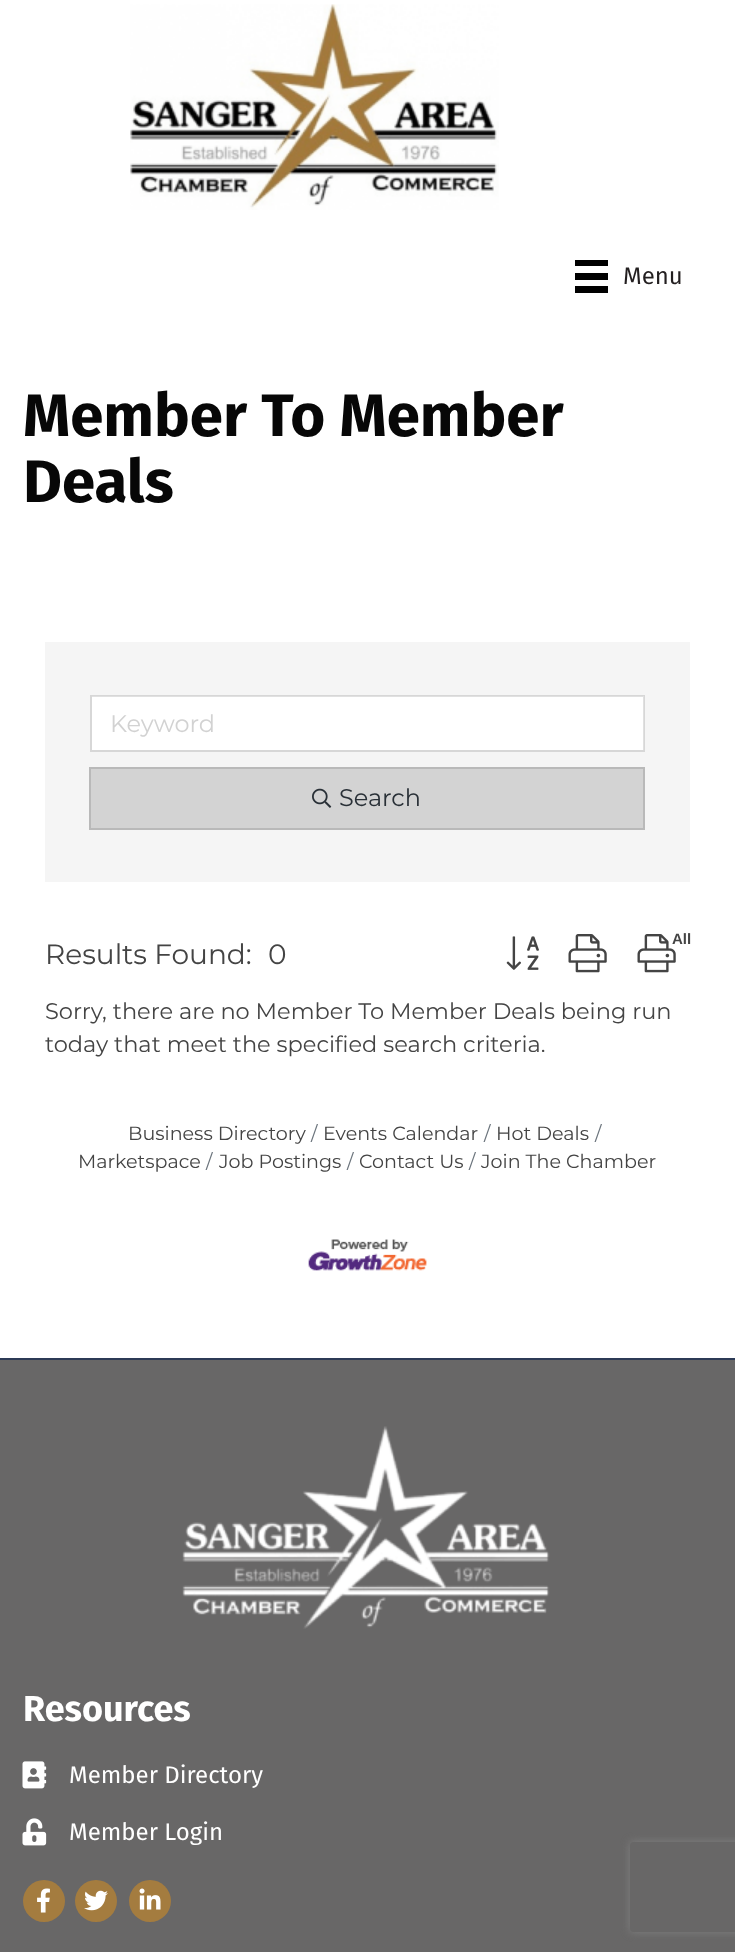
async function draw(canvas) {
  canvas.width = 735
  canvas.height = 1952
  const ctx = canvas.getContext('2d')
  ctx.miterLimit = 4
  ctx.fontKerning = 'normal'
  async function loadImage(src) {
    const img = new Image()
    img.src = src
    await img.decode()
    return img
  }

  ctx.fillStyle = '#fff'
  ctx.fillRect(0, 0, 735, 1952)
  ctx.drawImage(await loadImage('image0.png'), 130, 4, 369, 206)
  ctx.fillStyle = '#000'
  ctx.fillRect(575, 260, 33, 6)
  ctx.fillRect(575, 273, 33, 7)
  ctx.fillRect(575, 286, 33, 7)
  ctx.font = '24px Fira Sans'
  ctx.fillStyle = '#231f20'
  ctx.fillText('Menu', 623, 284)
  ctx.font = 'bold 60px Fira Sans'
  ctx.fillStyle = '#070707'
  ctx.fillText('Member To Member', 23, 436)
  ctx.fillText('Deals', 23, 502)
  ctx.fillStyle = '#f5f5f5'
  ctx.fillRect(45, 642, 645, 240)
  ctx.fillStyle = '#fff'
  ctx.fillRect(92, 696, 552, 54)
  ctx.strokeStyle = '#0000001f'
  ctx.lineWidth = 2
  ctx.strokeRect(91, 696, 553, 55)
  ctx.font = '24px Montserrat'
  ctx.fillStyle = '#d2d2d2'
  ctx.fillText('Keyword', 110, 732)
  ctx.fillStyle = '#d3d3d3'
  ctx.beginPath()
  ctx.rect(90, 768, 554, 61)
  ctx.fill()
  ctx.strokeStyle = '#b9b9b9'
  ctx.stroke()
  ctx.drawImage(await loadImage('image1.png'), 312, 788, 20, 20)
  ctx.fillStyle = '#293037'
  ctx.fillText('Search', 339, 806)
  ctx.drawImage(await loadImage('image2.png'), 506, 936, 33, 34)
  ctx.drawImage(await loadImage('image3.png'), 568, 934, 39, 39)
  ctx.drawImage(await loadImage('image3.png'), 637, 934, 39, 39)
  ctx.font = 'bold 15px Liberation Sans'
  ctx.fillStyle = '#444'
  ctx.fillText('All', 672, 944)
  ctx.font = '28px Montserrat'
  ctx.fillText('Results Found:', 45, 964)
  ctx.fillText('0', 268, 964)
  ctx.font = '22.5px Montserrat'
  ctx.fillText('Sorry, there are no Member To Member Deals being run', 45, 1019)
  ctx.fillText('today that meet the specified search criteria.', 45, 1052)
  ctx.font = '19.1px Montserrat'
  ctx.fillStyle = '#6c757d'
  ctx.fillText('/', 595, 1140)
  ctx.fillStyle = '#444'
  ctx.fillText('Marketspace', 78, 1168)
  ctx.fillText('Business Directory', 128, 1140)
  ctx.fillStyle = '#6c757d'
  ctx.fillText('/', 311, 1140)
  ctx.fillStyle = '#444'
  ctx.fillText('Events Calendar', 323, 1140)
  ctx.fillStyle = '#6c757d'
  ctx.fillText('/', 484, 1140)
  ctx.fillStyle = '#444'
  ctx.fillText('Hot Deals', 496, 1140)
  ctx.fillStyle = '#6c757d'
  ctx.fillText('/', 206, 1168)
  ctx.fillStyle = '#444'
  ctx.fillText('Job Postings', 219, 1168)
  ctx.fillStyle = '#6c757d'
  ctx.fillText('/', 347, 1168)
  ctx.fillStyle = '#444'
  ctx.fillText('Contact Us', 359, 1168)
  ctx.fillStyle = '#6c757d'
  ctx.fillText('/', 469, 1168)
  ctx.fillStyle = '#444'
  ctx.fillText('Join The Chamber', 481, 1168)
  ctx.drawImage(await loadImage('image4.png'), 308, 1239, 119, 32)
  ctx.fillStyle = '#686767'
  ctx.fillRect(0, 1360, 735, 592)
  ctx.fillStyle = '#2c3a56'
  ctx.fillRect(0, 1358, 735, 2)
  ctx.drawImage(await loadImage('image5.png'), 182, 1426, 368, 203)
  ctx.font = 'bold 36px Fira Sans'
  ctx.fillStyle = '#fff'
  ctx.fillText('Resources', 23, 1721)
  ctx.drawImage(await loadImage('image6.png'), 22, 1761, 25, 28)
  ctx.font = '24px Fira Sans'
  ctx.fillText('Member Directory', 69, 1783)
  ctx.drawImage(await loadImage('image7.png'), 22, 1818, 25, 28)
  ctx.fillText('Member Login', 69, 1840)
  ctx.fillStyle = '#a47c3f'
  ctx.beginPath()
  ctx.arc(44, 1901, 21, 0, 2 * Math.PI)
  ctx.fill()
  ctx.drawImage(await loadImage('image8.png'), 37, 1888, 13, 25)
  ctx.beginPath()
  ctx.arc(96, 1901, 21, 0, 2 * Math.PI)
  ctx.fill()
  ctx.drawImage(await loadImage('image9.png'), 84, 1890, 24, 21)
  ctx.beginPath()
  ctx.arc(150, 1901, 21, 0, 2 * Math.PI)
  ctx.fill()
  ctx.drawImage(await loadImage('image10.png'), 139, 1888, 22, 22)
  ctx.save()
  ctx.beginPath()
  ctx.moveTo(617, 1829)
  ctx.lineTo(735, 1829)
  ctx.lineTo(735, 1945)
  ctx.lineTo(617, 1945)
  ctx.closePath()
  ctx.moveTo(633, 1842)
  ctx.lineTo(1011, 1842)
  ctx.bezierCurveTo(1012.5, 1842, 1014, 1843.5, 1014, 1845)
  ctx.lineTo(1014, 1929)
  ctx.bezierCurveTo(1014, 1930.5, 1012.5, 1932, 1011, 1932)
  ctx.lineTo(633, 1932)
  ctx.bezierCurveTo(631.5, 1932, 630, 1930.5, 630, 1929)
  ctx.lineTo(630, 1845)
  ctx.bezierCurveTo(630, 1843.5, 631.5, 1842, 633, 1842)
  ctx.closePath()
  ctx.clip('evenodd')
  ctx.fillStyle = '#808080'
  ctx.filter = 'blur(4px)'
  ctx.beginPath()
  ctx.roundRect(630, 1842, 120, 90, 3)
  ctx.fill()
  ctx.filter = 'none'
  ctx.restore()
}

draw(document.querySelector('canvas'))
